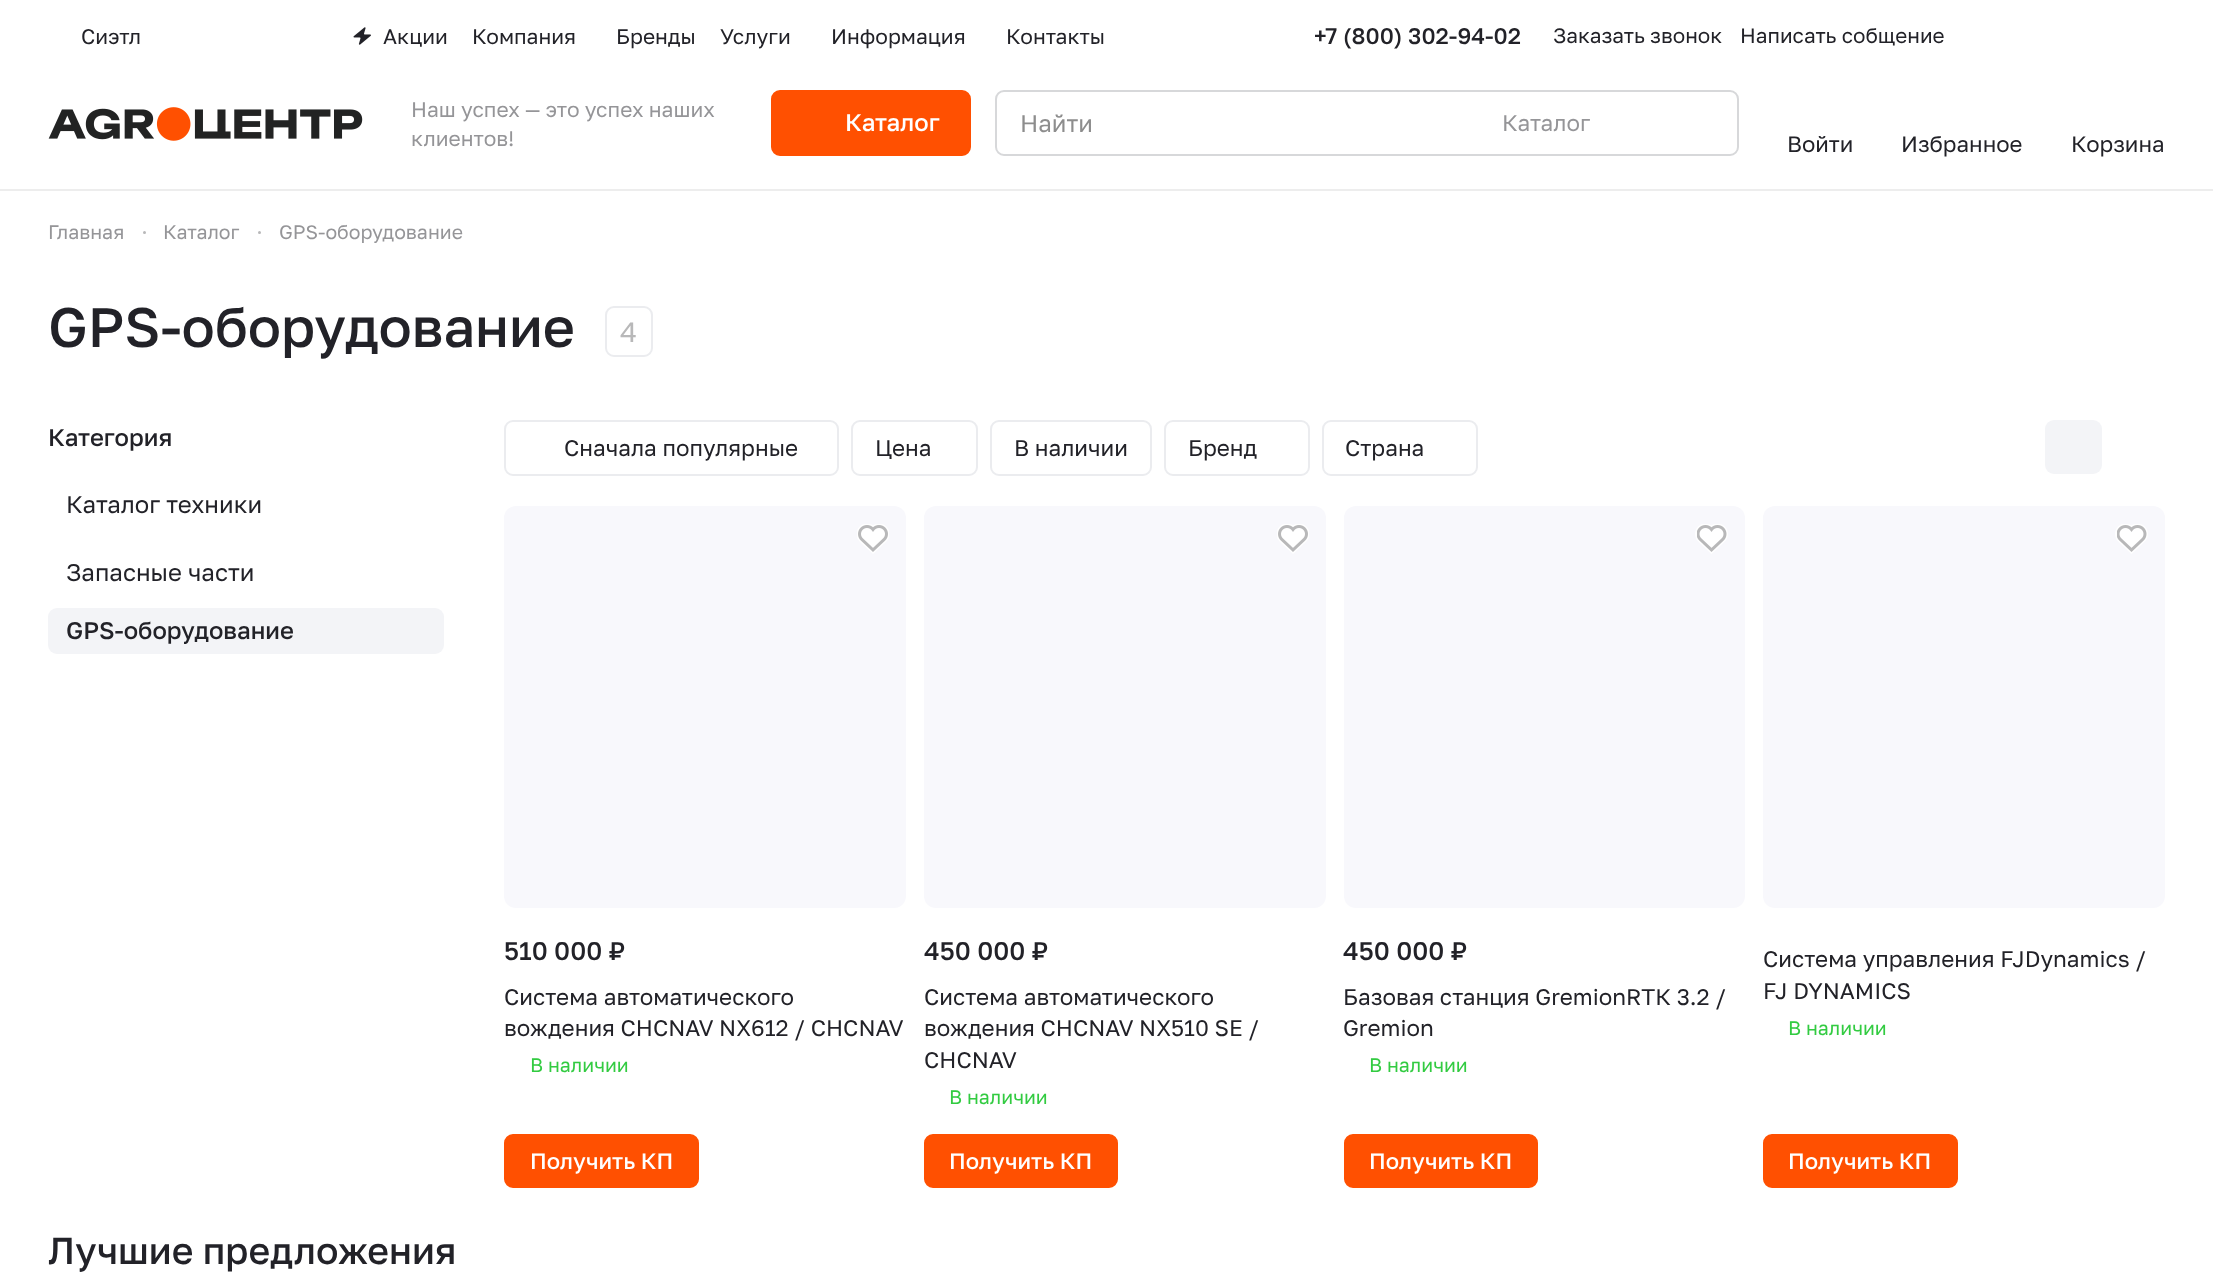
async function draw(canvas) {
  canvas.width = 2221
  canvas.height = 1281
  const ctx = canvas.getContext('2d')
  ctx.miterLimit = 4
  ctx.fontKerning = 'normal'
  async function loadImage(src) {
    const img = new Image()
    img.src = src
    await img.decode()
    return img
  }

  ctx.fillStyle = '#fff'
  ctx.fillRect(0, 0, 2221, 1281)
  ctx.fillStyle = '#ededed'
  ctx.fillRect(0, 189, 2213, 2)
  ctx.font = '21px Golos Text'
  ctx.fillStyle = '#222228'
  ctx.fillText('Сиэтл', 81, 44)
  ctx.drawImage(await loadImage('image0.png'), 353, 27, 18, 18)
  ctx.fillText('Акции', 383, 44)
  ctx.fillText('Компания', 472, 44)
  ctx.fillText('Бренды', 616, 44)
  ctx.fillText('Услуги', 720, 44)
  ctx.fillText('Информация', 831, 44)
  ctx.fillText('Контакты', 1006, 44)
  ctx.font = '500 22.5px Golos Text'
  ctx.fillText('+7 (800) 302-94-02', 1314, 44)
  ctx.font = '20.75px Golos Text'
  ctx.fillText('Заказать звонок', 1553, 43)
  ctx.fillText('Написать собщение', 1740, 43)
  ctx.drawImage(await loadImage('image1.png'), 48, 107, 315, 34)
  ctx.font = '21px Golos Text'
  ctx.fillStyle = '#959598'
  ctx.fillText('Наш успех — это успех наших', 411, 117)
  ctx.fillText('клиентов!', 411, 146)
  ctx.fillStyle = '#ff5001'
  ctx.beginPath()
  ctx.roundRect(772, 91, 198, 64, 8)
  ctx.fill()
  ctx.strokeStyle = '#ff5001'
  ctx.lineWidth = 2
  ctx.stroke()
  ctx.font = '500 24px Golos Text'
  ctx.fillStyle = '#fff'
  ctx.fillText('Каталог', 845, 131)
  ctx.beginPath()
  ctx.roundRect(996, 91, 742, 64, 8)
  ctx.strokeStyle = '#d7d8da'
  ctx.stroke()
  ctx.font = '24px Golos Text'
  ctx.fillStyle = '#8d8d8d'
  ctx.fillText('Найти', 1020, 132)
  ctx.font = '22.5px Golos Text'
  ctx.fillStyle = '#959598'
  ctx.fillText('Каталог', 1502, 131)
  ctx.font = '22.25px Golos Text'
  ctx.fillStyle = '#222228'
  ctx.fillText('Войти', 1787, 152)
  ctx.fillText('Избранное', 1901, 152)
  ctx.fillText('Корзина', 2071, 152)
  ctx.font = '19.5px Golos Text'
  ctx.fillStyle = '#959598'
  ctx.fillText('Главная', 48, 239)
  ctx.fillStyle = '#b8b8b9'
  ctx.beginPath()
  ctx.arc(144.5, 232.5, 1.5, 0, 2 * Math.PI)
  ctx.fill()
  ctx.fillStyle = '#959598'
  ctx.fillText('Каталог', 163, 239)
  ctx.fillStyle = '#b8b8b9'
  ctx.beginPath()
  ctx.arc(259.5, 232.5, 1.5, 0, 2 * Math.PI)
  ctx.fill()
  ctx.fillStyle = '#959598'
  ctx.fillText('GPS-оборудование', 279, 239)
  ctx.font = '500 55.5px Golos Text'
  ctx.fillStyle = '#222228'
  ctx.fillText('GPS-оборудование', 48, 347)
  ctx.beginPath()
  ctx.roundRect(606, 307, 46, 49, 8)
  ctx.strokeStyle = '#ebecef'
  ctx.stroke()
  ctx.font = '28px Golos Text'
  ctx.fillStyle = '#b8b8b9'
  ctx.fillText('4', 620, 342)
  ctx.font = '500 24px Golos Text'
  ctx.fillStyle = '#222228'
  ctx.fillText('Категория', 48, 446)
  ctx.font = '24px Golos Text'
  ctx.fillText('Каталог техники', 66, 513)
  ctx.fillText('Запасные части', 66, 581)
  ctx.fillStyle = '#f3f4f7'
  ctx.beginPath()
  ctx.roundRect(48, 608, 396, 46, 9)
  ctx.fill()
  ctx.font = '500 24px Golos Text'
  ctx.fillStyle = '#222228'
  ctx.fillText('GPS-оборудование', 66, 639)
  ctx.beginPath()
  ctx.roundRect(505, 421, 333, 54, 8)
  ctx.stroke()
  ctx.font = '22.5px Golos Text'
  ctx.fillText('Сначала популярные', 564, 456)
  ctx.beginPath()
  ctx.roundRect(852, 421, 125, 54, 8)
  ctx.stroke()
  ctx.fillText('Цена', 875, 456)
  ctx.beginPath()
  ctx.roundRect(991, 421, 160, 54, 8)
  ctx.stroke()
  ctx.fillText('В наличии', 1014, 456)
  ctx.beginPath()
  ctx.roundRect(1165, 421, 144, 54, 8)
  ctx.stroke()
  ctx.fillText('Бренд', 1188, 456)
  ctx.beginPath()
  ctx.roundRect(1323, 421, 154, 54, 8)
  ctx.stroke()
  ctx.fillText('Страна', 1345, 456)
  ctx.fillStyle = '#f3f4f7'
  ctx.beginPath()
  ctx.roundRect(2045, 420, 57, 54, 9)
  ctx.fill()
  ctx.fillStyle = '#f8f8fc'
  ctx.beginPath()
  ctx.roundRect(504, 506, 402, 402, 12)
  ctx.fill()
  ctx.drawImage(await loadImage('image2.png'), 857, 524, 32, 30)
  ctx.drawImage(await loadImage('image3.png'), 858, 525, 30, 27)
  ctx.font = '500 25.5px Golos Text'
  ctx.fillStyle = '#222228'
  ctx.fillText('510 000 ₽', 504, 960)
  ctx.font = '22.5px Golos Text'
  ctx.fillText('Система автоматического', 504, 1005)
  ctx.fillText('вождения CHCNAV NX612 / CHCNAV', 504, 1036)
  ctx.font = '19.5px Golos Text'
  ctx.fillStyle = '#32cb41'
  ctx.fillText('В наличии', 530, 1072)
  ctx.fillStyle = '#ff5001'
  ctx.beginPath()
  ctx.roundRect(505, 1135, 193, 52, 8)
  ctx.fill()
  ctx.strokeStyle = '#ff5001'
  ctx.stroke()
  ctx.font = '500 22.25px Golos Text'
  ctx.fillStyle = '#fff'
  ctx.fillText('Получить КП', 530, 1169)
  ctx.fillStyle = '#f8f8fc'
  ctx.beginPath()
  ctx.roundRect(924, 506, 402, 402, 12)
  ctx.fill()
  ctx.drawImage(await loadImage('image2.png'), 1277, 524, 32, 30)
  ctx.drawImage(await loadImage('image3.png'), 1278, 525, 30, 27)
  ctx.font = '500 25.5px Golos Text'
  ctx.fillStyle = '#222228'
  ctx.fillText('450 000 ₽', 924, 960)
  ctx.font = '22.5px Golos Text'
  ctx.fillText('Система автоматического', 924, 1005)
  ctx.fillText('вождения CHCNAV NX510 SE /', 924, 1036)
  ctx.fillText('CHCNAV', 924, 1068)
  ctx.font = '19.5px Golos Text'
  ctx.fillStyle = '#32cb41'
  ctx.fillText('В наличии', 949, 1104)
  ctx.fillStyle = '#ff5001'
  ctx.beginPath()
  ctx.roundRect(925, 1135, 192, 52, 8)
  ctx.fill()
  ctx.stroke()
  ctx.font = '500 22.25px Golos Text'
  ctx.fillStyle = '#fff'
  ctx.fillText('Получить КП', 949, 1169)
  ctx.fillStyle = '#f8f8fc'
  ctx.beginPath()
  ctx.roundRect(1344, 506, 401, 402, 12)
  ctx.fill()
  ctx.drawImage(await loadImage('image4.png'), 1695, 524, 33, 30)
  ctx.drawImage(await loadImage('image5.png'), 1697, 525, 30, 27)
  ctx.font = '500 25.5px Golos Text'
  ctx.fillStyle = '#222228'
  ctx.fillText('450 000 ₽', 1343, 960)
  ctx.font = '22.5px Golos Text'
  ctx.fillText('Базовая станция GremionRТК 3.2 /', 1343, 1005)
  ctx.fillText('Gremion', 1343, 1036)
  ctx.font = '19.5px Golos Text'
  ctx.fillStyle = '#32cb41'
  ctx.fillText('В наличии', 1369, 1072)
  ctx.fillStyle = '#ff5001'
  ctx.beginPath()
  ctx.roundRect(1345, 1135, 192, 52, 8)
  ctx.fill()
  ctx.stroke()
  ctx.font = '500 22.25px Golos Text'
  ctx.fillStyle = '#fff'
  ctx.fillText('Получить КП', 1369, 1169)
  ctx.fillStyle = '#f8f8fc'
  ctx.beginPath()
  ctx.roundRect(1763, 506, 402, 402, 12)
  ctx.fill()
  ctx.drawImage(await loadImage('image4.png'), 2115, 524, 33, 30)
  ctx.drawImage(await loadImage('image5.png'), 2117, 525, 30, 27)
  ctx.font = '22.5px Golos Text'
  ctx.fillStyle = '#222228'
  ctx.fillText('Система управления FJDynamics /', 1763, 967)
  ctx.fillText('FJ DYNAMICS', 1763, 999)
  ctx.font = '19.5px Golos Text'
  ctx.fillStyle = '#32cb41'
  ctx.fillText('В наличии', 1788, 1035)
  ctx.fillStyle = '#ff5001'
  ctx.beginPath()
  ctx.roundRect(1764, 1135, 193, 52, 8)
  ctx.fill()
  ctx.stroke()
  ctx.font = '500 22.25px Golos Text'
  ctx.fillStyle = '#fff'
  ctx.fillText('Получить КП', 1788, 1169)
  ctx.font = '500 37.5px Golos Text'
  ctx.fillStyle = '#222228'
  ctx.fillText('Лучшие предложения', 48, 1264)
}

draw(document.querySelector('canvas'))
